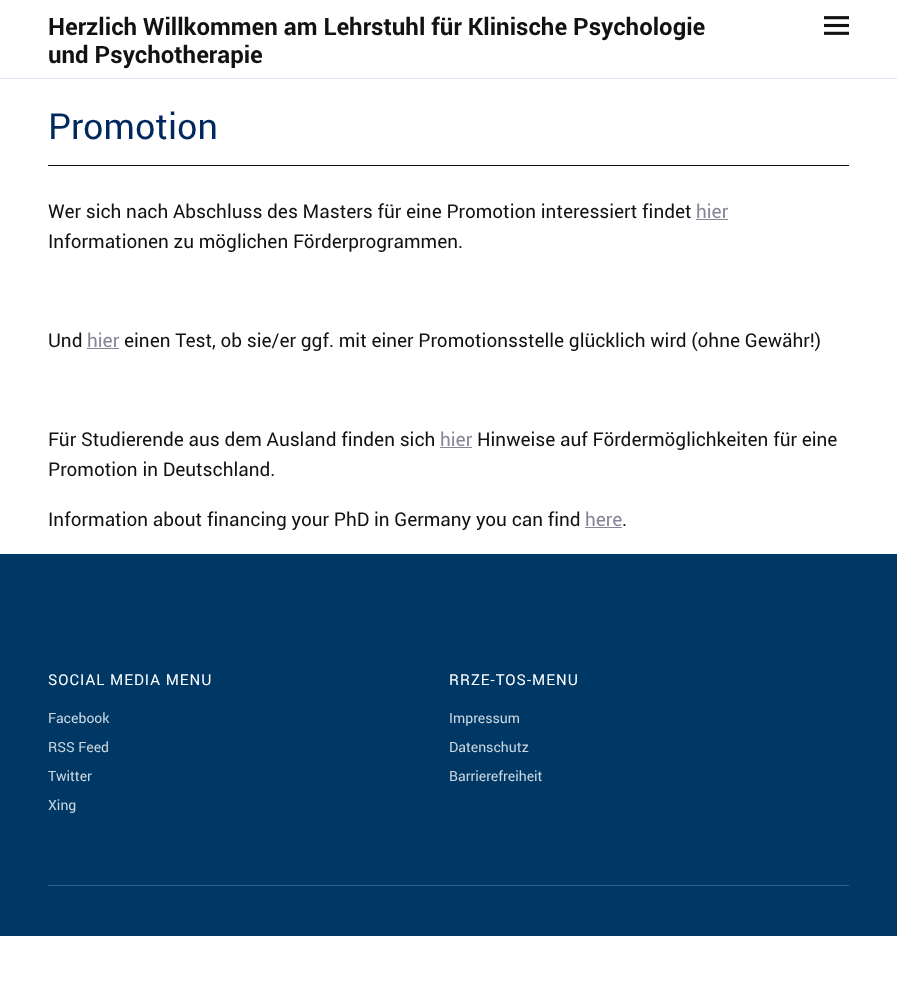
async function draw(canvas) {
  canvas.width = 897
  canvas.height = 1000
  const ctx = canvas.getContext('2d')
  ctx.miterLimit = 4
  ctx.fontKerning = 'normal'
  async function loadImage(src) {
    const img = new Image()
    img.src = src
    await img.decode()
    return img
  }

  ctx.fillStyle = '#fff'
  ctx.fillRect(0, 0, 897, 1000)
  ctx.fillStyle = '#dde5f0'
  ctx.fillRect(0, 78, 897, 1)
  ctx.font = 'bold 24px Roboto'
  ctx.fillStyle = '#121212'
  ctx.fillText('Herzlich Willkommen am Lehrstuhl für Klinische Psychologie', 48, 35)
  ctx.fillText('und Psychotherapie', 48, 63)
  ctx.drawImage(await loadImage('image0.png'), 824, 16, 25, 19)
  ctx.fillRect(48, 165, 801, 1)
  ctx.font = '36px Roboto'
  ctx.fillStyle = '#00285e'
  ctx.fillText('Promotion', 48, 139)
  ctx.font = '19px Roboto'
  ctx.fillStyle = '#121212'
  ctx.fillText('Wer sich nach Abschluss des Masters für eine Promotion interessiert findet', 48, 218)
  ctx.fillStyle = '#878699'
  ctx.fillText('hier', 696, 218)
  ctx.fillRect(696, 219, 32, 1)
  ctx.fillStyle = '#121212'
  ctx.fillText('Informationen zu möglichen Förderprogrammen.', 48, 248)
  ctx.fillText('Und', 48, 347)
  ctx.fillStyle = '#878699'
  ctx.fillText('hier', 87, 347)
  ctx.fillRect(87, 348, 32, 1)
  ctx.fillStyle = '#121212'
  ctx.fillText('einen Test, ob sie/er ggf. mit einer Promotionsstelle glücklich wird (ohne Gewähr!)', 124, 347)
  ctx.fillText('Für Studierende aus dem Ausland finden sich', 48, 446)
  ctx.fillStyle = '#878699'
  ctx.fillText('hier', 440, 446)
  ctx.fillRect(440, 447, 32, 1)
  ctx.fillStyle = '#121212'
  ctx.fillText('Hinweise auf Fördermöglichkeiten für eine', 477, 446)
  ctx.fillText('Promotion in Deutschland.', 48, 476)
  ctx.fillText('Information about financing your PhD in Germany you can find', 48, 526)
  ctx.fillStyle = '#878699'
  ctx.fillText('here', 585, 526)
  ctx.fillStyle = '#121212'
  ctx.fillText('.', 622, 526)
  ctx.fillStyle = '#878699'
  ctx.fillRect(585, 527, 37, 1)
  ctx.fillStyle = '#003865'
  ctx.fillRect(0, 554, 897, 382)
  ctx.fillStyle = '#336084'
  ctx.fillRect(48, 885, 801, 1)
  ctx.letterSpacing = '1px'
  ctx.font = '15px Roboto'
  ctx.fillStyle = '#fff'
  ctx.fillText('SOCIAL MEDIA MENU', 48, 685)
  ctx.letterSpacing = '0px'
  ctx.font = '14px Roboto'
  ctx.fillStyle = '#ccd7e0'
  ctx.fillText('Facebook', 48, 723)
  ctx.fillText('RSS Feed', 48, 752)
  ctx.fillText('Twitter', 48, 781)
  ctx.fillText('Xing', 48, 810)
  ctx.letterSpacing = '1px'
  ctx.font = '15px Roboto'
  ctx.fillStyle = '#fff'
  ctx.fillText('RRZE-TOS-MENU', 449, 685)
  ctx.letterSpacing = '0px'
  ctx.font = '14px Roboto'
  ctx.fillStyle = '#ccd7e0'
  ctx.fillText('Impressum', 449, 723)
  ctx.fillText('Datenschutz', 449, 752)
  ctx.fillText('Barrierefreiheit', 449, 781)
}

draw(document.querySelector('canvas'))
